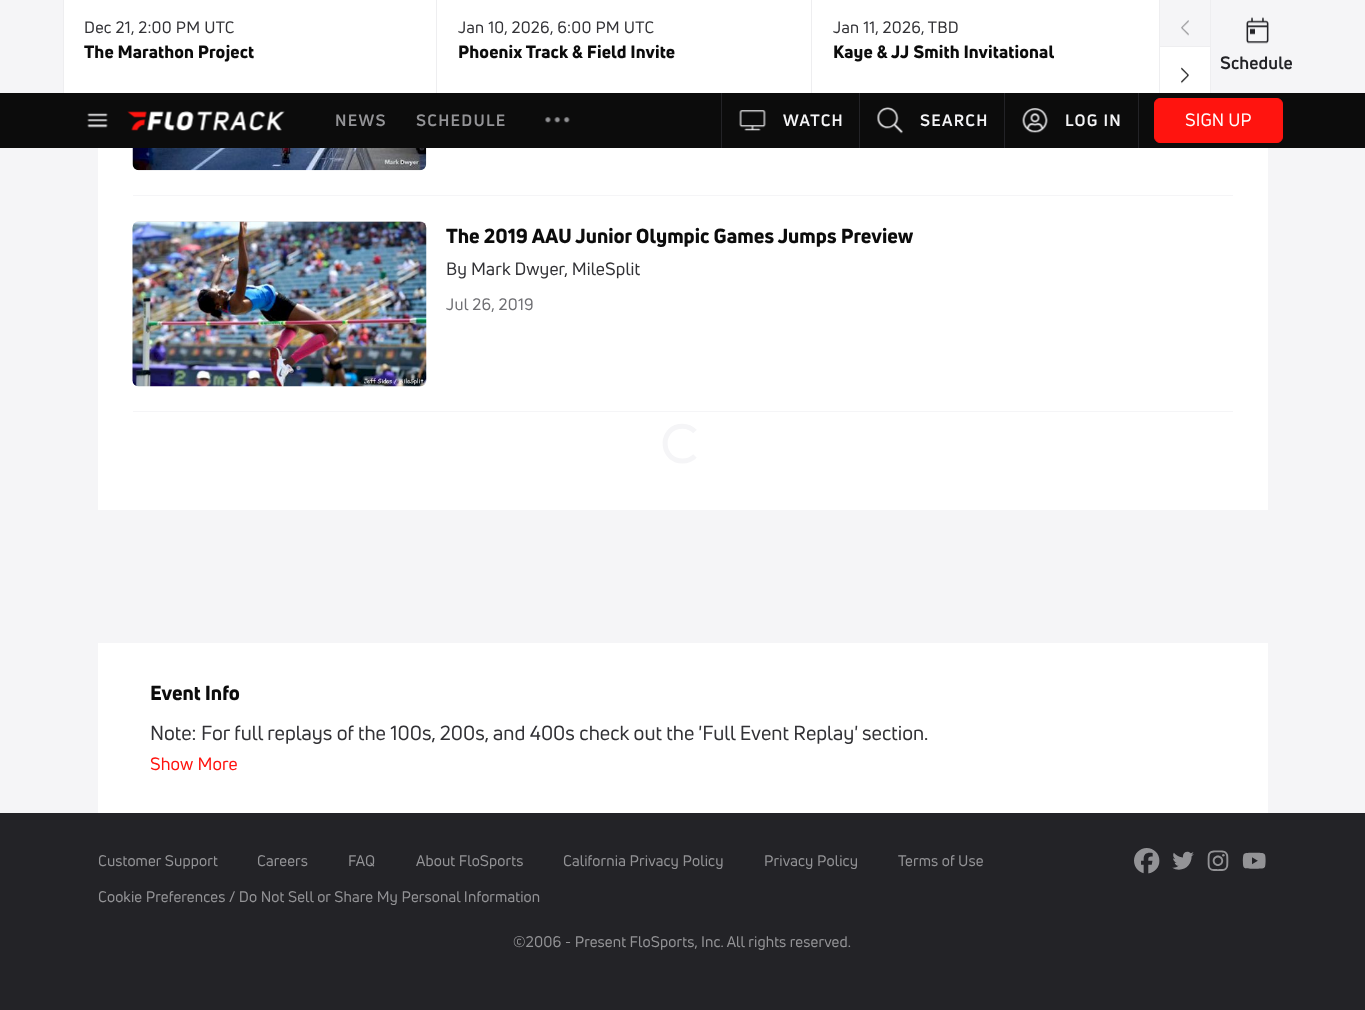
async function draw(canvas) {
  canvas.width = 1365
  canvas.height = 1010
  const ctx = canvas.getContext('2d')
  ctx.miterLimit = 4
  ctx.fontKerning = 'normal'
  async function loadImage(src) {
    const img = new Image()
    img.src = src
    await img.decode()
    return img
  }

  ctx.fillStyle = '#f5f5f7'
  ctx.fillRect(0, 0, 1365, 1010)
  ctx.fillStyle = '#fff'
  ctx.fillRect(64, 0, 1146, 93)
  ctx.fillStyle = '#eeeef0'
  ctx.fillRect(436, 0, 1, 93)
  ctx.fillRect(63, 0, 1, 93)
  ctx.letterSpacing = '0.25px'
  ctx.font = '16.25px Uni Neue'
  ctx.fillStyle = '#323236'
  ctx.fillText('Dec 21, 2:00 PM UTC', 84, 33)
  ctx.letterSpacing = '0.12px'
  ctx.font = '900 17.5px Uni Neue'
  ctx.fillStyle = '#0c0c0c'
  ctx.fillText('The Marathon Project', 84, 58)
  ctx.fillStyle = '#eeeef0'
  ctx.fillRect(811, 0, 1, 93)
  ctx.letterSpacing = '0.25px'
  ctx.font = '16.25px Uni Neue'
  ctx.fillStyle = '#323236'
  ctx.fillText('Jan 10, 2026, 6:00 PM UTC', 458, 33)
  ctx.letterSpacing = '0.12px'
  ctx.font = '900 17.5px Uni Neue'
  ctx.fillStyle = '#0c0c0c'
  ctx.fillText('Phoenix Track & Field Invite', 458, 58)
  ctx.letterSpacing = '0.25px'
  ctx.font = '16.25px Uni Neue'
  ctx.fillStyle = '#323236'
  ctx.fillText('Jan 11, 2026, TBD', 833, 33)
  ctx.letterSpacing = '0.12px'
  ctx.font = '900 17.5px Uni Neue'
  ctx.fillStyle = '#0c0c0c'
  ctx.fillText('Kaye & JJ Smith Invitational', 833, 58)
  ctx.fillStyle = '#eeeef0'
  ctx.fillRect(1159, 0, 1, 93)
  ctx.fillStyle = '#f5f5f7'
  ctx.fillRect(1160, 0, 50, 46)
  ctx.drawImage(await loadImage('image0.png'), 1181, 20, 8, 16)
  ctx.fillStyle = '#eeeef0'
  ctx.fillRect(1160, 46, 50, 1)
  ctx.drawImage(await loadImage('image1.png'), 1181, 67, 8, 17)
  ctx.fillRect(1210, 0, 1, 93)
  ctx.drawImage(await loadImage('image2.png'), 1246, 17, 23, 27)
  ctx.font = 'bold 17.5px Uni Neue'
  ctx.fillStyle = '#232327'
  ctx.fillText('Schedule', 1220, 69)
  ctx.fillStyle = '#0c0c0c'
  ctx.fillRect(0, 93, 1365, 55)
  ctx.drawImage(await loadImage('image3.png'), 87, 113, 21, 15)
  ctx.drawImage(await loadImage('image4.png'), 127, 111, 158, 20)
  ctx.letterSpacing = '1.25px'
  ctx.font = 'bold 16.25px Uni Neue'
  ctx.fillStyle = '#939396'
  ctx.fillText('NEWS', 335, 126)
  ctx.fillText('SCHEDULE', 416, 126)
  ctx.drawImage(await loadImage('image5.png'), 545, 117, 25, 6)
  ctx.fillStyle = '#232327'
  ctx.fillRect(721, 93, 1, 55)
  ctx.drawImage(await loadImage('image6.png'), 739, 110, 27, 21)
  ctx.fillStyle = '#f5f5f7'
  ctx.fillText('WATCH', 783, 126)
  ctx.fillStyle = '#232327'
  ctx.fillRect(859, 93, 1, 55)
  ctx.drawImage(await loadImage('image7.png'), 877, 107, 26, 27)
  ctx.fillStyle = '#f5f5f7'
  ctx.fillText('SEARCH', 920, 126)
  ctx.fillStyle = '#232327'
  ctx.fillRect(1138, 93, 1, 55)
  ctx.fillRect(1004, 93, 1, 55)
  ctx.drawImage(await loadImage('image8.png'), 1022, 108, 26, 25)
  ctx.fillStyle = '#f5f5f7'
  ctx.fillText('LOG IN', 1065, 126)
  ctx.fillStyle = '#ff140f'
  ctx.beginPath()
  ctx.roundRect(1154.5, 98.5, 128, 44, 5.5)
  ctx.fill()
  ctx.strokeStyle = '#ff140f'
  ctx.stroke()
  ctx.letterSpacing = '0.12px'
  ctx.font = '17.5px Uni Neue'
  ctx.fillStyle = '#fff'
  ctx.fillText('SIGN UP', 1185, 126)
  ctx.fillRect(98, 148, 1170, 362)
  ctx.fillStyle = '#f5f5f7'
  ctx.fillRect(133, 195, 1100, 1)
  ctx.drawImage(await loadImage('image9.png'), 132, 148, 295, 23)
  ctx.fillRect(133, 411, 1100, 1)
  ctx.fillStyle = '#e7e7e7'
  ctx.beginPath()
  ctx.roundRect(133, 221, 293, 165, 6)
  ctx.fill()
  ctx.drawImage(await loadImage('image10.png'), 132, 221, 295, 166)
  ctx.letterSpacing = '0px'
  ctx.font = '900 20px Uni Neue'
  ctx.fillStyle = '#0c0c0c'
  ctx.fillText('The 2019 AAU Junior Olympic Games Jumps Preview', 446, 243)
  ctx.letterSpacing = '0.12px'
  ctx.font = '17.5px Uni Neue'
  ctx.fillStyle = '#323236'
  ctx.fillText('By Mark Dwyer, MileSplit', 446, 275)
  ctx.letterSpacing = '0.25px'
  ctx.font = '16.25px Uni Neue'
  ctx.fillStyle = '#6f6f73'
  ctx.fillText('Jul 26, 2019', 446, 310)
  ctx.beginPath()
  ctx.moveTo(695, 456)
  ctx.bezierCurveTo(691.5, 459.5, 687, 461, 682.5, 461)
  ctx.bezierCurveTo(661.5, 461, 658.5, 430.5, 679, 426.5)
  ctx.bezierCurveTo(685, 425.5, 691, 427.5, 695, 431.5)
  ctx.strokeStyle = '#f5f5f7'
  ctx.lineWidth = 5
  ctx.stroke()
  ctx.fillStyle = '#fff'
  ctx.fillRect(98, 643, 1170, 170)
  ctx.letterSpacing = '0px'
  ctx.font = '900 20px Uni Neue'
  ctx.fillStyle = '#0c0c0c'
  ctx.fillText('Event Info', 150, 700)
  ctx.font = '20px Uni Neue'
  ctx.fillStyle = '#323236'
  ctx.fillText('Note: For full replays of the 100s, 200s, and 400s check out the \'Full Event Replay\' section.', 150, 740)
  ctx.letterSpacing = '0.12px'
  ctx.font = '17.5px Uni Neue'
  ctx.fillStyle = '#ff140f'
  ctx.fillText('Show More', 150, 770)
  ctx.fillStyle = '#232327'
  ctx.fillRect(0, 813, 1365, 197)
  ctx.font = '15px Uni Neue'
  ctx.fillStyle = '#939396'
  ctx.fillText('Customer Support', 98, 866)
  ctx.fillText('Careers', 257, 866)
  ctx.fillText('FAQ', 348, 866)
  ctx.fillText('About FloSports', 416, 866)
  ctx.fillText('California Privacy Policy', 563, 866)
  ctx.fillText('Privacy Policy', 764, 866)
  ctx.fillText('Terms of Use', 898, 866)
  ctx.fillText('Cookie Preferences / Do Not Sell or Share My Personal Information', 98, 902)
  ctx.drawImage(await loadImage('image11.png'), 1134, 848, 26, 26)
  ctx.drawImage(await loadImage('image12.png'), 1172, 851, 22, 19)
  ctx.drawImage(await loadImage('image13.png'), 1207, 850, 22, 21)
  ctx.drawImage(await loadImage('image14.png'), 1242, 852, 24, 17)
  ctx.fillText('©2006 - Present FloSports, Inc. All rights reserved.', 513, 947)
}

draw(document.querySelector('canvas'))
